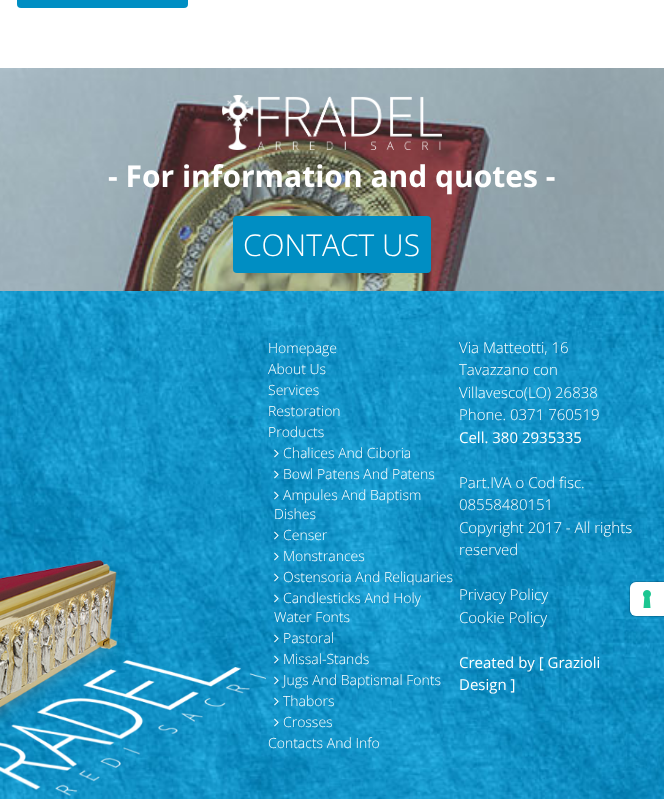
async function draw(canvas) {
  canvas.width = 664
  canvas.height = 799
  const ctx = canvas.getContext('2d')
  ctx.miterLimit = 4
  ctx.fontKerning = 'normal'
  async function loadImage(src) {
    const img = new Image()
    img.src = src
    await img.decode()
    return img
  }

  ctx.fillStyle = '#fff'
  ctx.fillRect(0, 0, 664, 799)
  ctx.fillStyle = '#008ec3'
  ctx.beginPath()
  ctx.roundRect(17, -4, 171, 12, 4)
  ctx.fill()
  ctx.drawImage(await loadImage('image0.png'), 0, 68, 664, 223)
  ctx.drawImage(await loadImage('image1.png'), 222, 95, 220, 55)
  ctx.font = 'bold 30px Open Sans'
  ctx.fillStyle = '#fff'
  ctx.fillText('- For information and quotes -', 108, 187)
  ctx.fillStyle = '#008ec3'
  ctx.beginPath()
  ctx.roundRect(233, 216, 198, 57, 4)
  ctx.fill()
  ctx.font = '300 30px Open Sans'
  ctx.fillStyle = '#fff'
  ctx.fillText('CONTACT US', 243, 256)
  ctx.drawImage(await loadImage('image2.png'), 0, 291, 664, 508)
  ctx.drawImage(await loadImage('image3.png'), 0, 559, 266, 237)
  ctx.font = '300 14px Open Sans'
  ctx.fillText('Homepage', 268, 353)
  ctx.fillText('About Us', 268, 374)
  ctx.fillText('Services', 268, 395)
  ctx.fillText('Restoration', 268, 416)
  ctx.fillText('Products', 268, 437)
  ctx.drawImage(await loadImage('image4.png'), 274, 449, 5, 9)
  ctx.fillText('Chalices And Ciboria', 283, 458)
  ctx.drawImage(await loadImage('image5.png'), 274, 470, 5, 9)
  ctx.fillText('Bowl Patens And Patens', 283, 479)
  ctx.drawImage(await loadImage('image6.png'), 274, 491, 5, 9)
  ctx.fillText('Ampules And Baptism', 283, 500)
  ctx.fillText('Dishes', 274, 519)
  ctx.drawImage(await loadImage('image7.png'), 274, 531, 5, 9)
  ctx.fillText('Censer', 283, 540)
  ctx.drawImage(await loadImage('image8.png'), 274, 552, 5, 9)
  ctx.fillText('Monstrances', 283, 561)
  ctx.drawImage(await loadImage('image9.png'), 274, 573, 5, 9)
  ctx.fillText('Ostensoria And Reliquaries', 283, 582)
  ctx.drawImage(await loadImage('image10.png'), 274, 594, 5, 9)
  ctx.fillText('Candlesticks And Holy', 283, 603)
  ctx.fillText('Water Fonts', 274, 622)
  ctx.drawImage(await loadImage('image11.png'), 274, 634, 5, 9)
  ctx.fillText('Pastoral', 283, 643)
  ctx.drawImage(await loadImage('image12.png'), 274, 655, 5, 9)
  ctx.fillText('Missal-Stands', 283, 664)
  ctx.drawImage(await loadImage('image13.png'), 274, 676, 5, 9)
  ctx.fillText('Jugs And Baptismal Fonts', 283, 685)
  ctx.drawImage(await loadImage('image14.png'), 274, 697, 5, 9)
  ctx.fillText('Thabors', 283, 706)
  ctx.drawImage(await loadImage('image15.png'), 274, 718, 5, 9)
  ctx.fillText('Crosses', 283, 727)
  ctx.fillText('Contacts And Info', 268, 748)
  ctx.font = '300 15px Open Sans'
  ctx.fillText('Via Matteotti, 16', 459, 353)
  ctx.fillText('Tavazzano con', 459, 375)
  ctx.fillText('Villavesco(LO) 26838', 459, 398)
  ctx.fillText('Phone. 0371 760519', 459, 420)
  ctx.font = '15px Open Sans'
  ctx.fillText('Cell. 380 2935335', 459, 443)
  ctx.font = '300 15px Open Sans'
  ctx.fillText('Part.IVA o Cod fisc.', 459, 488)
  ctx.fillText('08558480151', 459, 510)
  ctx.fillText('Copyright 2017 - All rights', 459, 533)
  ctx.fillText('reserved', 459, 555)
  ctx.fillText('Privacy Policy', 459, 600)
  ctx.fillText('Cookie Policy', 459, 623)
  ctx.font = '15px Open Sans'
  ctx.fillText('Created by [ Grazioli', 459, 668)
  ctx.fillText('Design ]', 459, 690)
  ctx.beginPath()
  ctx.moveTo(636, 581.5)
  ctx.lineTo(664.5, 581.5)
  ctx.lineTo(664.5, 616.5)
  ctx.lineTo(636, 616.5)
  ctx.bezierCurveTo(632.5, 616.5, 629.5, 613.5, 629.5, 610)
  ctx.lineTo(629.5, 588)
  ctx.bezierCurveTo(629.5, 584.5, 632.5, 581.5, 636, 581.5)
  ctx.closePath()
  ctx.strokeStyle = '#00000026'
  ctx.stroke()
  ctx.beginPath()
  ctx.roundRect(630, 582, 34, 34, [6, 0, 0, 6])
  ctx.fill()
  ctx.drawImage(await loadImage('image16.png'), 643, 590, 8, 18)
}

draw(document.querySelector('canvas'))
